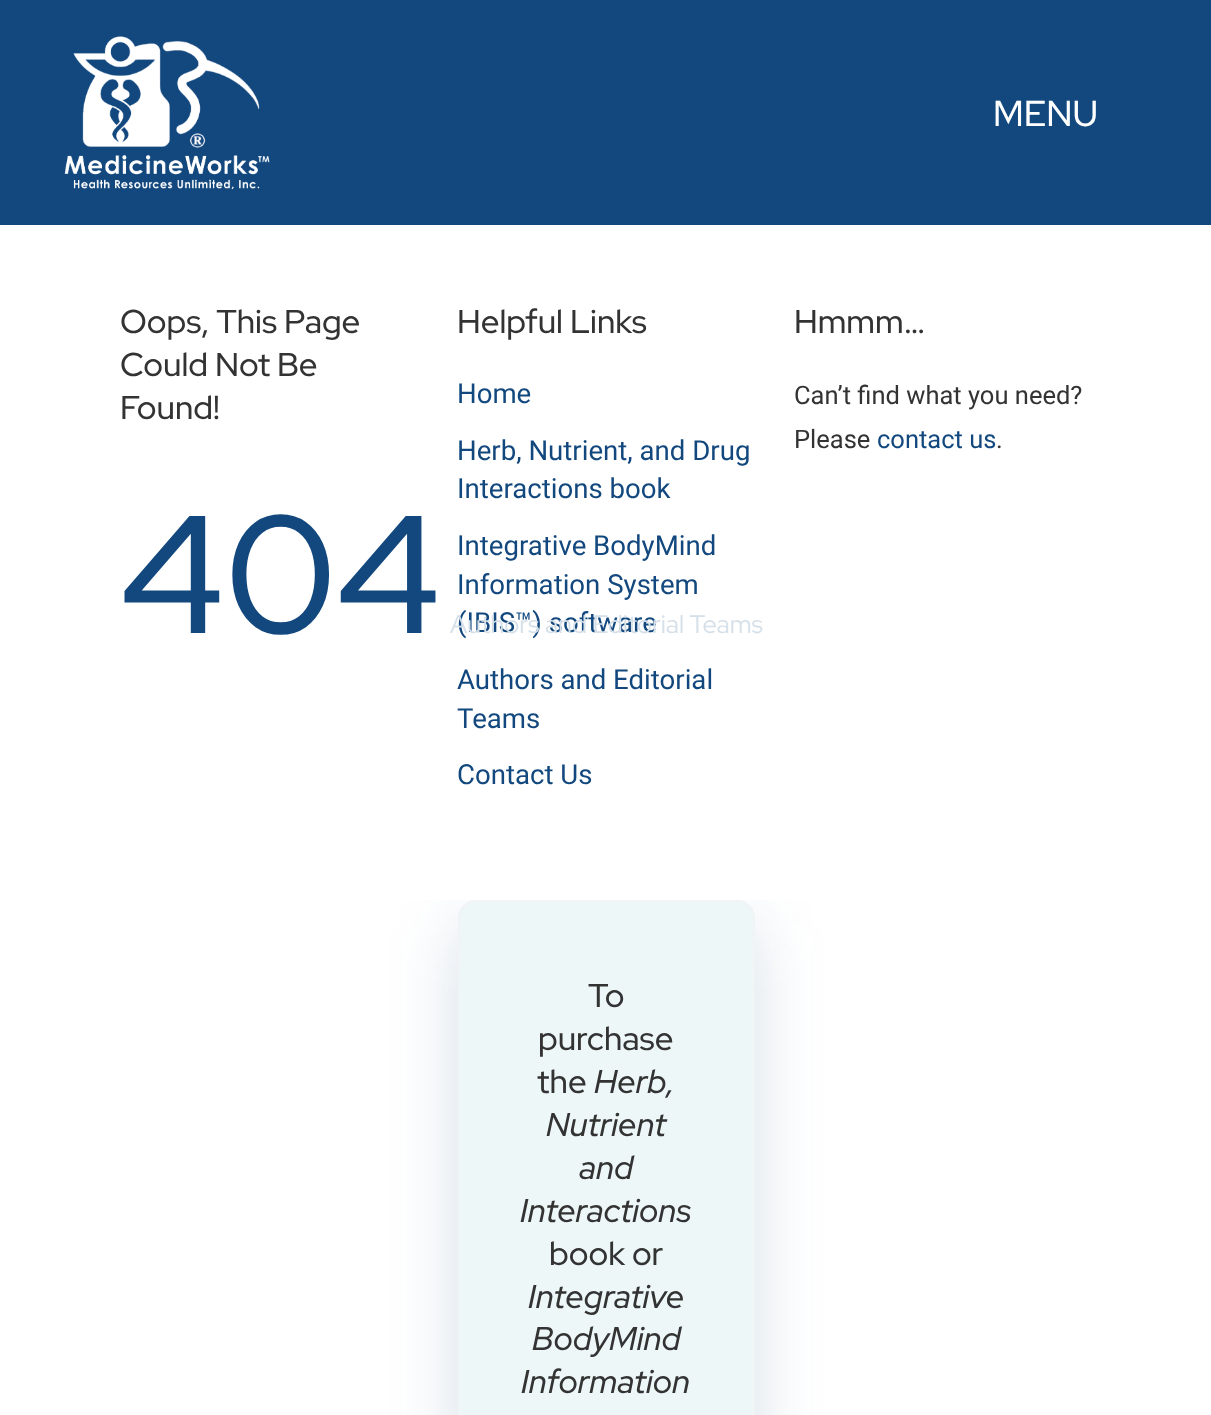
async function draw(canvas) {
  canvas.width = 1211
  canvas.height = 1415
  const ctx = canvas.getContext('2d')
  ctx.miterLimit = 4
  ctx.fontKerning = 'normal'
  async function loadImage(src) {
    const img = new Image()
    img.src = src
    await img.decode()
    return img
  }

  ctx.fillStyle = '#fff'
  ctx.fillRect(0, 0, 1211, 1415)
  ctx.fillStyle = '#12487e'
  ctx.fillRect(0, 0, 1211, 225)
  ctx.drawImage(await loadImage('image0.png'), 64, 36, 206, 154)
  ctx.font = '500 36px Red Hat Display'
  ctx.fillStyle = '#fff'
  ctx.fillText('MENU', 993, 126)
  ctx.font = '27.6px Roboto'
  ctx.fillStyle = '#12487e'
  ctx.fillText('(IBIS™) software', 457, 632)
  ctx.font = '25.5px Red Hat Display'
  ctx.fillStyle = '#d6e0e9'
  ctx.fillText('Authors and Editorial Teams', 450, 633)
  ctx.font = '500 33px Red Hat Display'
  ctx.fillStyle = '#333'
  ctx.fillText('Oops, This Page', 120, 333)
  ctx.fillText('Could Not Be', 120, 376)
  ctx.fillText('Found!', 120, 419)
  ctx.font = '500 167px Red Hat Display'
  ctx.fillStyle = '#12487e'
  ctx.fillText('404', 120, 633)
  ctx.font = '500 33px Red Hat Display'
  ctx.fillStyle = '#333'
  ctx.fillText('Helpful Links', 457, 333)
  ctx.font = '27.6px Roboto'
  ctx.fillStyle = '#12487e'
  ctx.fillText('Home', 457, 403)
  ctx.fillText('Herb, Nutrient, and Drug', 457, 460)
  ctx.fillText('Interactions book', 457, 498)
  ctx.fillText('Integrative BodyMind', 457, 555)
  ctx.fillText('Information System', 457, 594)
  ctx.fillText('Authors and Editorial', 457, 689)
  ctx.fillText('Teams', 457, 728)
  ctx.fillText('Contact Us', 457, 784)
  ctx.font = '500 33px Red Hat Display'
  ctx.fillStyle = '#333'
  ctx.fillText('Hmmm…', 794, 333)
  ctx.font = '25.5px Roboto'
  ctx.fillText('Can’t find what you need?', 794, 404)
  ctx.fillText('Please', 794, 448)
  ctx.fillStyle = '#12487e'
  ctx.fillText('contact us', 877, 448)
  ctx.fillStyle = '#333'
  ctx.fillText('.', 996, 448)
  ctx.save()
  ctx.beginPath()
  ctx.moveTo(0, 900)
  ctx.lineTo(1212, 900)
  ctx.lineTo(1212, 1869)
  ctx.lineTo(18, 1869)
  ctx.bezierCurveTo(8, 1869, 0, 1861, 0, 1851)
  ctx.closePath()
  ctx.clip()
  ctx.fillStyle = '#12487e2b'
  ctx.filter = 'blur(34px)'
  ctx.beginPath()
  ctx.roundRect(458, 924, 297, 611, 18)
  ctx.fill()
  ctx.filter = 'none'
  ctx.restore()
  ctx.fillStyle = '#edf7f7'
  ctx.beginPath()
  ctx.roundRect(459, 901, 295, 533, 17)
  ctx.fill()
  ctx.strokeStyle = '#f2f3f5'
  ctx.lineWidth = 2
  ctx.stroke()
  ctx.font = '500 33px Red Hat Display'
  ctx.fillStyle = '#333'
  ctx.fillText('To', 588, 1007)
  ctx.fillText('purchase', 538, 1050)
  ctx.fillText('the', 537, 1093)
  ctx.font = 'italic 500 33px Red Hat Display'
  ctx.fillText('Herb,', 594, 1093)
  ctx.fillText('Nutrient', 546, 1136)
  ctx.fillText('and', 579, 1179)
  ctx.fillText('Interactions', 520, 1222)
  ctx.font = '500 33px Red Hat Display'
  ctx.fillText('book or', 549, 1265)
  ctx.font = 'italic 500 33px Red Hat Display'
  ctx.fillText('Integrative', 528, 1308)
  ctx.fillText('BodyMind', 532, 1350)
  ctx.fillText('Information', 521, 1393)
}

draw(document.querySelector('canvas'))
